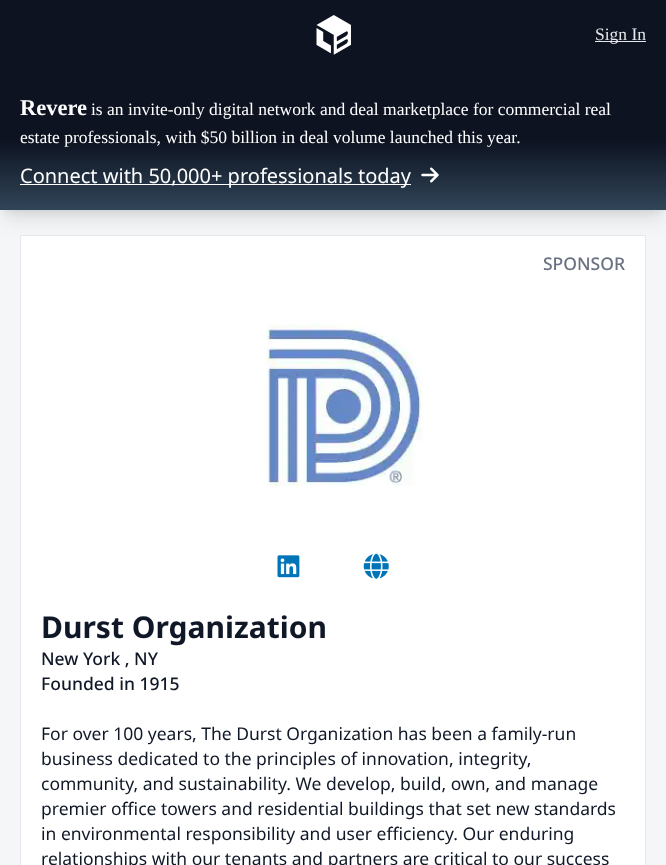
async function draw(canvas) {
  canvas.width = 666
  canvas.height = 865
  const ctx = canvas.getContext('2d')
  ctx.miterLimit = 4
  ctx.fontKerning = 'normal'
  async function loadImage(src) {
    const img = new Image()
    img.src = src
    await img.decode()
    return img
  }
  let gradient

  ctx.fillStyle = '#f5f6f8'
  ctx.fillRect(0, 0, 666, 865)
  ctx.fillStyle = '#0000001a'
  ctx.filter = 'blur(4px)'
  ctx.beginPath()
  ctx.rect(5, 80, 656, 130)
  ctx.fill()
  ctx.filter = 'none'
  ctx.filter = 'blur(9.5px)'
  ctx.beginPath()
  ctx.rect(4, 86, 659, 133)
  ctx.fill()
  ctx.filter = 'none'
  ctx.fillStyle = '#0d1321'
  ctx.fillRect(0, 0, 666, 70)
  ctx.drawImage(await loadImage('image0.png'), 316, 15, 35, 40)
  ctx.fillStyle = '#e5e7eb'
  ctx.fillRect(595, 41, 51, 1)
  ctx.font = '17.5px Liberation Serif'
  ctx.fillText('Sign In', 595, 40)
  gradient = ctx.createLinearGradient(333, 70, 333, 210)
  gradient.addColorStop(0, '#0d1321')
  gradient.addColorStop(0.5, '#0d1321')
  gradient.addColorStop(1, '#314558')
  ctx.fillStyle = gradient
  ctx.fillRect(0, 70, 666, 140)
  ctx.font = 'bold 22.5px Liberation Serif'
  ctx.fillStyle = '#fff'
  ctx.fillText('Revere', 20, 115)
  ctx.font = '17.5px Liberation Serif'
  ctx.fillText('is an invite-only digital network and deal marketplace for commercial real', 91, 115)
  ctx.fillText('estate professionals, with $50 billion in deal volume launched this year.', 20, 143)
  ctx.fillRect(20, 184, 391, 1)
  ctx.font = '20px Noto Sans'
  ctx.fillText('Connect with 50,000+ professionals today', 20, 183)
  ctx.drawImage(await loadImage('image1.png'), 421, 167, 18, 16)
  ctx.beginPath()
  ctx.rect(20.5, 235.5, 625, 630)
  ctx.fill()
  ctx.strokeStyle = '#e5e7eb'
  ctx.stroke()
  ctx.font = '500 17.5px Noto Sans'
  ctx.fillStyle = '#6a7282'
  ctx.fillText('SPONSOR', 543, 270)
  ctx.drawImage(await loadImage('image2.png'), 266, 324, 157, 163)
  ctx.drawImage(await loadImage('image3.png'), 277, 555, 23, 23)
  ctx.drawImage(await loadImage('image4.png'), 363, 553, 26, 26)
  ctx.font = 'bold 30px Noto Sans'
  ctx.fillStyle = '#101828'
  ctx.fillText('Durst Organization', 41, 638)
  ctx.font = '500 17.5px Noto Sans'
  ctx.fillText('New York , NY', 41, 665)
  ctx.fillText('Founded in 1915', 41, 690)
  ctx.font = '17.5px Noto Sans'
  ctx.fillText('For over 100 years, The Durst Organization has been a family-run', 41, 740)
  ctx.fillText('business dedicated to the principles of innovation, integrity,', 41, 765)
  ctx.fillText('community, and sustainability. We develop, build, own, and manage', 41, 790)
  ctx.fillText('premier office towers and residential buildings that set new standards', 41, 815)
  ctx.fillText('in environmental responsibility and user efficiency. Our enduring', 41, 840)
  ctx.fillText('relationships with our tenants and partners are critical to our success', 41, 865)
}

draw(document.querySelector('canvas'))
